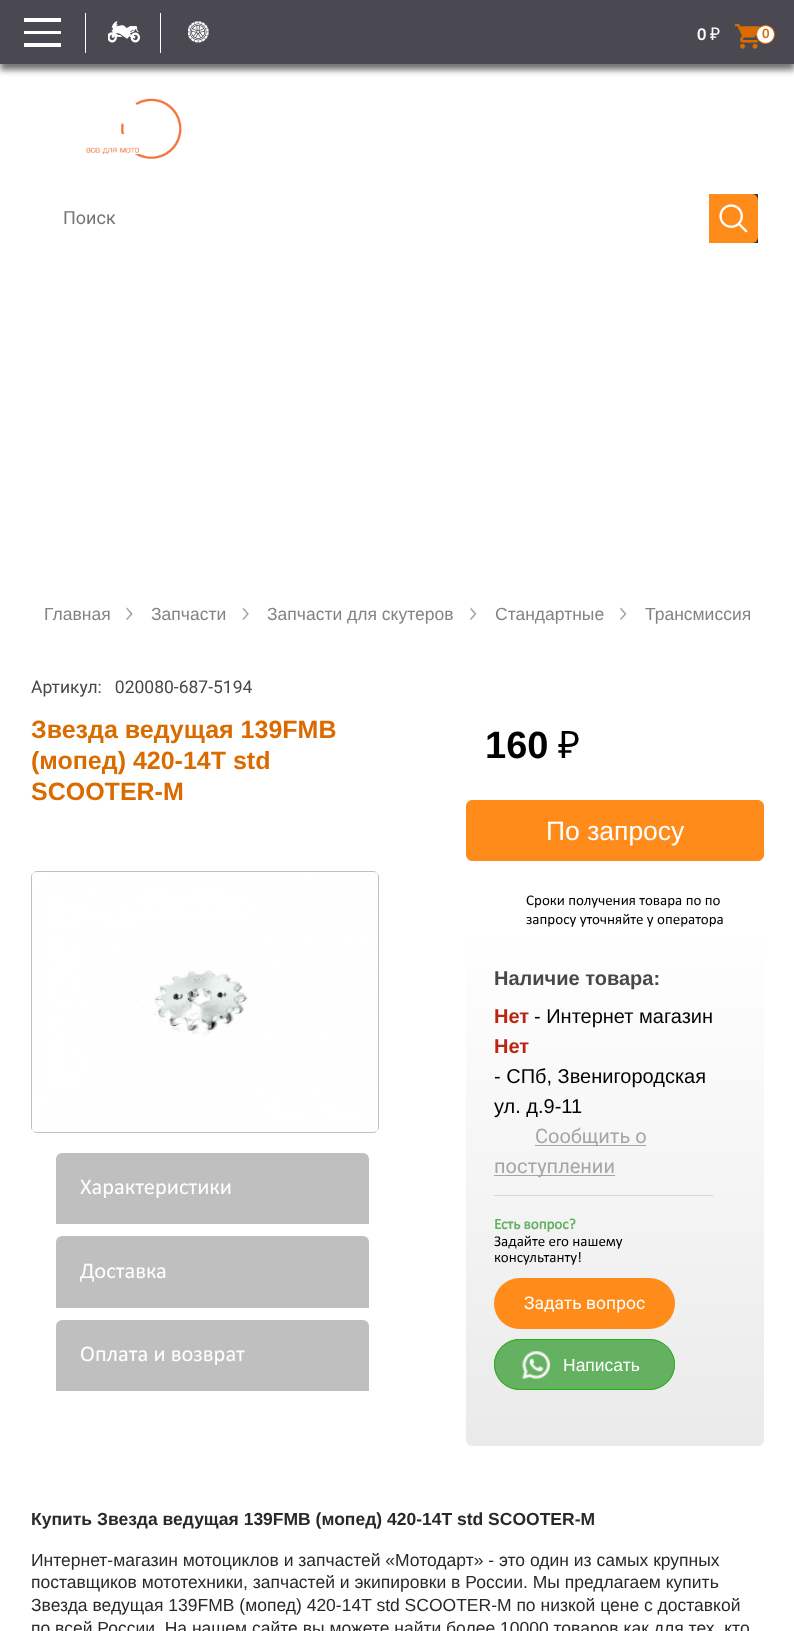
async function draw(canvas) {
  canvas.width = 794
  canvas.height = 1631
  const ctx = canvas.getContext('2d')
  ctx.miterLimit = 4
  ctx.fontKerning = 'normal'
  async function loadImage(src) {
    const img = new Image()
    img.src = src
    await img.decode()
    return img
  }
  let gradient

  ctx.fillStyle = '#fff'
  ctx.fillRect(0, 0, 794, 1631)
  ctx.fillStyle = '#0000008c'
  ctx.filter = 'blur(3px)'
  ctx.beginPath()
  ctx.rect(0, 6, 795, 64)
  ctx.fill()
  ctx.filter = 'none'
  ctx.fillStyle = '#4a4952'
  ctx.fillRect(0, 0, 794, 64)
  ctx.fillStyle = '#fff'
  ctx.fillRect(24, 18, 37, 4)
  ctx.fillRect(24, 43, 37, 4)
  ctx.fillRect(24, 31, 37, 3)
  ctx.fillRect(85, 13, 1, 40)
  ctx.drawImage(await loadImage('image0.png'), 108, 21, 32, 22)
  ctx.fillRect(160, 13, 1, 40)
  ctx.drawImage(await loadImage('image1.png'), 188, 21, 21, 22)
  ctx.font = 'bold 17.5px Calibri'
  ctx.fillText('0', 697, 40)
  ctx.font = '17.5px Noto Sans'
  ctx.fillText('₽', 710, 40)
  ctx.drawImage(await loadImage('image2.png'), 735, 24, 25, 25)
  ctx.beginPath()
  ctx.arc(765.5, 34.5, 9, 0, 2 * Math.PI)
  ctx.fill()
  ctx.strokeStyle = '#da6b00'
  ctx.stroke()
  ctx.font = 'bold 14px Calibri'
  ctx.fillStyle = '#da6b00'
  ctx.fillText('0', 762, 38)
  ctx.drawImage(await loadImage('image3.png'), 86, 98, 96, 61)
  gradient = ctx.createLinearGradient(38, 218, 758, 218)
  gradient.addColorStop(0.95, '#fff')
  gradient.addColorStop(1, '#2b2e35')
  ctx.fillStyle = gradient
  ctx.fillRect(722, 194, 36, 49)
  ctx.font = '18px Roboto'
  ctx.fillStyle = '#757575'
  ctx.fillText('Поиск', 63, 224)
  ctx.fillStyle = '#ff8b1b'
  ctx.beginPath()
  ctx.roundRect(709, 194, 49, 49, [0, 6, 6, 0])
  ctx.fill()
  ctx.drawImage(await loadImage('image4.png'), 719, 204, 29, 29)
  ctx.font = '17.5px Liberation Sans'
  ctx.fillStyle = '#838383'
  ctx.fillText('Главная', 44, 620)
  ctx.drawImage(await loadImage('image5.png'), 126, 607, 7, 13)
  ctx.fillText('Запчасти', 151, 620)
  ctx.drawImage(await loadImage('image6.png'), 242, 607, 7, 13)
  ctx.fillText('Запчасти для скутеров', 267, 620)
  ctx.drawImage(await loadImage('image7.png'), 470, 607, 7, 13)
  ctx.fillText('Стандартные', 495, 620)
  ctx.drawImage(await loadImage('image7.png'), 620, 607, 7, 13)
  ctx.fillText('Трансмиссия', 645, 620)
  ctx.font = '17.5px Roboto'
  ctx.fillStyle = '#484848'
  ctx.fillText('Артикул:   020080-687-5194', 31, 693)
  ctx.font = 'bold 25px Liberation Sans'
  ctx.fillStyle = '#da6b00'
  ctx.fillText('Звезда ведущая 139FMB', 31, 738)
  ctx.fillText('(мопед) 420-14T std', 31, 769)
  ctx.fillText('SCOOTER-M', 31, 800)
  ctx.beginPath()
  ctx.roundRect(31.5, 871.5, 347, 261, 5.5)
  ctx.strokeStyle = '#bfbfbf'
  ctx.stroke()
  ctx.drawImage(await loadImage('image8.png'), 32, 872, 346, 260)
  ctx.fillStyle = '#bfbfbf'
  ctx.beginPath()
  ctx.roundRect(56, 1153, 313, 71, [6, 6, 0, 0])
  ctx.fill()
  ctx.font = '22.5px Calibri'
  ctx.fillStyle = '#fff'
  ctx.fillText('Характеристики', 80, 1194)
  ctx.fillStyle = '#bfbfbf'
  ctx.beginPath()
  ctx.roundRect(56, 1236, 313, 72, [6, 6, 0, 0])
  ctx.fill()
  ctx.fillStyle = '#fff'
  ctx.fillText('Доставка', 80, 1278)
  ctx.fillStyle = '#bfbfbf'
  ctx.beginPath()
  ctx.roundRect(56, 1320, 313, 71, [6, 6, 0, 0])
  ctx.fill()
  ctx.fillStyle = '#fff'
  ctx.fillText('Оплата и возврат', 80, 1361)
  ctx.font = 'bold 38px Liberation Sans'
  ctx.fillStyle = '#000'
  ctx.fillText('160', 485, 758)
  ctx.font = '38px Noto Sans'
  ctx.fillText('₽', 558, 758)
  ctx.fillStyle = '#ff8b1b'
  ctx.beginPath()
  ctx.roundRect(466.5, 800.5, 297, 60, 5.5)
  ctx.fill()
  ctx.strokeStyle = '#ff8b1b'
  ctx.stroke()
  ctx.font = '26.5px Liberation Sans'
  ctx.fillStyle = '#fff'
  ctx.fillText('По запросу', 546, 840)
  ctx.font = '15px Calibri'
  ctx.fillStyle = '#000'
  ctx.fillText('Сроки получения товара по по', 526, 905)
  ctx.fillText('запросу уточняйте у оператора', 526, 924)
  gradient = ctx.createLinearGradient(615, 930, 615, 1446)
  gradient.addColorStop(0, '#fff')
  gradient.addColorStop(1, '#eaeaea')
  ctx.fillStyle = gradient
  ctx.beginPath()
  ctx.roundRect(466, 930, 298, 516, 6)
  ctx.fill()
  ctx.font = 'bold 20px Liberation Sans'
  ctx.fillStyle = '#484848'
  ctx.fillText('Наличие товара:', 494, 985)
  ctx.fillStyle = '#bb2612'
  ctx.fillText('Нет', 494, 1023)
  ctx.font = '20px Liberation Sans'
  ctx.fillStyle = '#000'
  ctx.fillText('- Интернет магазин', 534, 1023)
  ctx.font = 'bold 20px Liberation Sans'
  ctx.fillStyle = '#bb2612'
  ctx.fillText('Нет', 494, 1053)
  ctx.font = '20px Liberation Sans'
  ctx.fillStyle = '#000'
  ctx.fillText('- СПб, Звенигородская', 494, 1083)
  ctx.fillText('ул. д.9-11', 494, 1113)
  ctx.fillStyle = '#a6a6a6'
  ctx.fillRect(535, 1145, 111, 1)
  ctx.font = '20px Roboto'
  ctx.fillText('Сообщить о', 535, 1143)
  ctx.fillRect(494, 1175, 121, 1)
  ctx.fillText('поступлении', 494, 1173)
  ctx.fillStyle = '#d6d6d6'
  ctx.fillRect(494, 1195, 219, 1)
  ctx.font = 'bold 15px Calibri'
  ctx.fillStyle = '#64b161'
  ctx.fillText('Есть вопрос?', 494, 1229)
  ctx.font = '15px Calibri'
  ctx.fillStyle = '#000'
  ctx.fillText('Задайте его нашему', 494, 1246)
  ctx.fillText('консультанту!', 494, 1262)
  ctx.fillStyle = '#ff8b1b'
  ctx.beginPath()
  ctx.roundRect(494, 1278, 181, 51, 25.5)
  ctx.fill()
  ctx.font = '17.5px Roboto'
  ctx.fillStyle = '#fff'
  ctx.fillText('Задать вопрос', 524, 1309)
  ctx.fillStyle = '#64b161'
  ctx.beginPath()
  ctx.roundRect(494, 1339, 181, 51, 25.5)
  ctx.fill()
  ctx.drawImage(await loadImage('image9.png'), 522, 1351, 28, 28)
  ctx.beginPath()
  ctx.roundRect(494.5, 1339.5, 180, 50, 25)
  ctx.strokeStyle = '#28ac18'
  ctx.stroke()
  ctx.font = '17.5px Liberation Sans'
  ctx.fillStyle = '#fff'
  ctx.fillText('Написать', 563, 1371)
  ctx.font = 'bold 17.5px Liberation Sans'
  ctx.fillStyle = '#292929'
  ctx.fillText('Купить Звезда ведущая 139FMB (мопед) 420-14T std SCOOTER-M', 31, 1525)
  ctx.font = '17.5px Liberation Sans'
  ctx.fillText('Интернет-магазин мотоциклов и запчастей «Мотодарт» - это один из самых крупных', 31, 1566)
  ctx.fillText('поставщиков мототехники, запчастей и экипировки в России. Мы предлагаем купить', 31, 1588)
  ctx.fillText('Звезда ведущая 139FMB (мопед) 420-14T std SCOOTER-M по низкой цене с доставкой', 31, 1611)
  ctx.fillText('по всей России. На нашем сайте вы можете найти более 10000 товаров как для тех, кто', 31, 1634)
}

draw(document.querySelector('canvas'))
